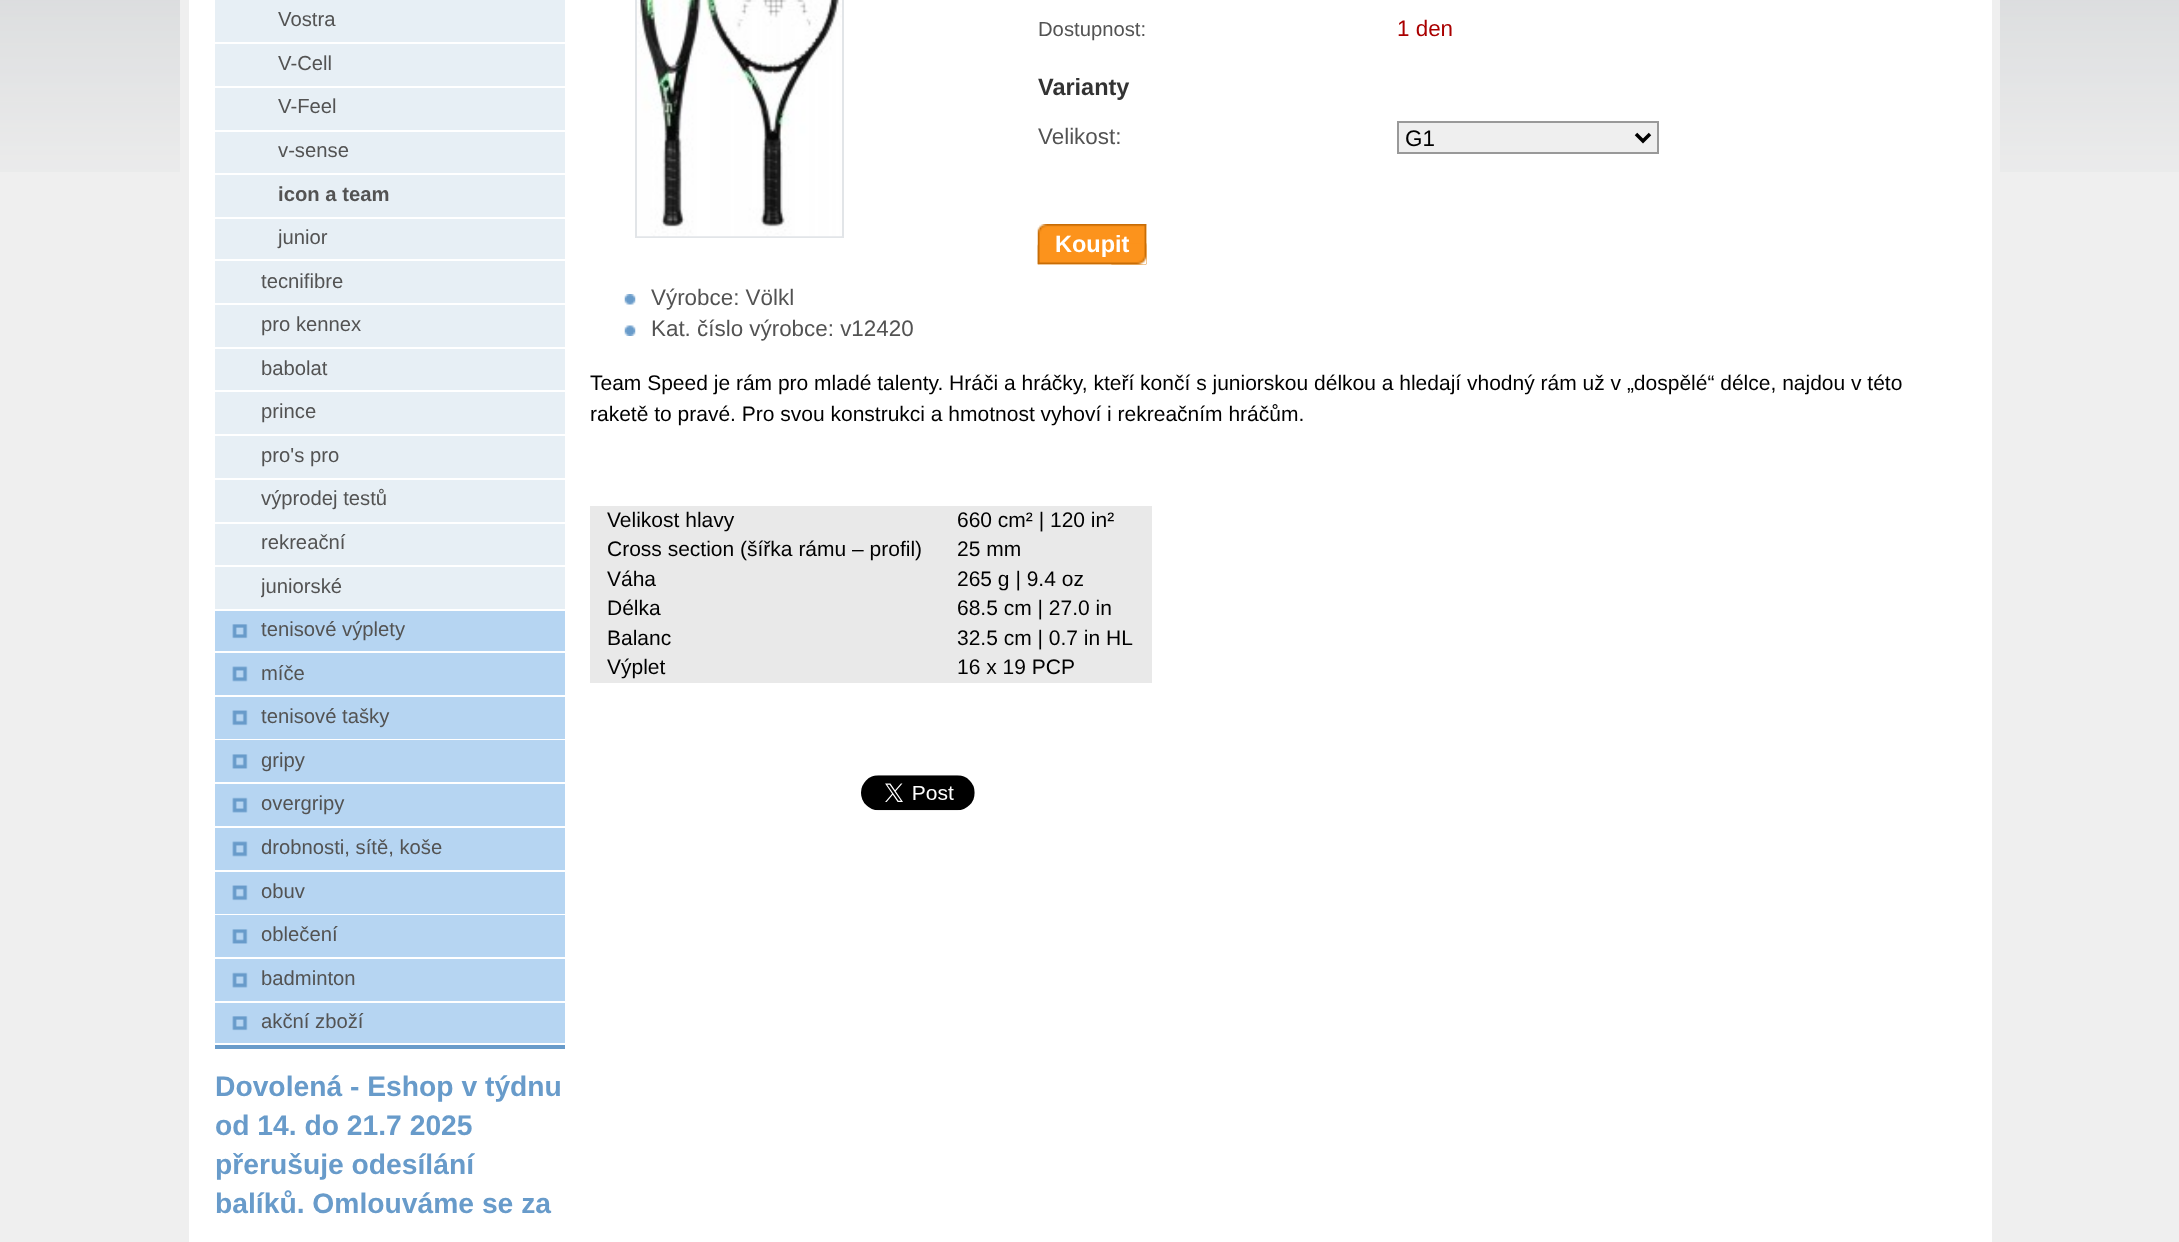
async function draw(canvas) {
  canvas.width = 2179
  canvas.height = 1242
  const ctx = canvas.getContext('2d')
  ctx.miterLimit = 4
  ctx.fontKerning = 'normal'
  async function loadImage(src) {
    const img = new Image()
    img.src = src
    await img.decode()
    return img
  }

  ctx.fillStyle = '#efefef'
  ctx.fillRect(0, 0, 2179, 1242)
  ctx.drawImage(await loadImage('image0.png'), 0, 0, 2179, 172)
  ctx.fillStyle = '#fff'
  ctx.fillRect(189, 0, 1803, 1242)
  ctx.fillStyle = '#efefef'
  ctx.fillRect(1992, 0, 8, 172)
  ctx.fillRect(180, 0, 9, 172)
  ctx.fillStyle = '#689bca'
  ctx.fillRect(215, 1045, 350, 4)
  ctx.fillStyle = '#b6d5f2'
  ctx.fillRect(215, 611, 350, 432)
  ctx.fillStyle = '#e7eff5'
  ctx.fillRect(215, 0, 350, 609)
  ctx.fillStyle = '#fff'
  ctx.fillRect(215, 42, 350, 2)
  ctx.font = '20.25px Liberation Sans'
  ctx.fillStyle = '#535353'
  ctx.fillText('Vostra', 278, 26)
  ctx.fillStyle = '#fff'
  ctx.fillRect(215, 86, 350, 2)
  ctx.fillStyle = '#535353'
  ctx.fillText('V-Cell', 278, 70)
  ctx.fillStyle = '#fff'
  ctx.fillRect(215, 130, 350, 2)
  ctx.fillStyle = '#535353'
  ctx.fillText('V-Feel', 278, 113)
  ctx.fillStyle = '#fff'
  ctx.fillRect(215, 173, 350, 2)
  ctx.fillStyle = '#535353'
  ctx.fillText('v-sense', 278, 157)
  ctx.fillStyle = '#fff'
  ctx.fillRect(215, 217, 350, 2)
  ctx.font = 'bold 20.25px Liberation Sans'
  ctx.fillStyle = '#535353'
  ctx.fillText('icon a team', 278, 201)
  ctx.fillStyle = '#fff'
  ctx.fillRect(215, 259, 350, 2)
  ctx.font = '20.25px Liberation Sans'
  ctx.fillStyle = '#535353'
  ctx.fillText('junior', 278, 244)
  ctx.fillStyle = '#fff'
  ctx.fillRect(215, 303, 350, 2)
  ctx.fillStyle = '#535353'
  ctx.fillText('tecnifibre', 261, 288)
  ctx.fillStyle = '#fff'
  ctx.fillRect(215, 347, 350, 2)
  ctx.fillStyle = '#535353'
  ctx.fillText('pro kennex', 261, 331)
  ctx.fillStyle = '#fff'
  ctx.fillRect(215, 390, 350, 2)
  ctx.fillStyle = '#535353'
  ctx.fillText('babolat', 261, 375)
  ctx.fillStyle = '#fff'
  ctx.fillRect(215, 434, 350, 2)
  ctx.fillStyle = '#535353'
  ctx.fillText('prince', 261, 418)
  ctx.fillStyle = '#fff'
  ctx.fillRect(215, 478, 350, 2)
  ctx.fillStyle = '#535353'
  ctx.fillText('pro\'s pro', 261, 462)
  ctx.fillStyle = '#fff'
  ctx.fillRect(215, 522, 350, 2)
  ctx.fillStyle = '#535353'
  ctx.fillText('výprodej testů', 261, 505)
  ctx.fillStyle = '#fff'
  ctx.fillRect(215, 565, 350, 2)
  ctx.fillStyle = '#535353'
  ctx.fillText('rekreační', 261, 549)
  ctx.save()
  ctx.beginPath()
  ctx.rect(261, 567, 287, 42)
  ctx.clip()
  ctx.fillText('juniorské', 261, 593)
  ctx.restore()
  ctx.drawImage(await loadImage('image1.png'), 232, 624, 16, 15)
  ctx.fillStyle = '#fff'
  ctx.fillRect(215, 651, 350, 2)
  ctx.fillStyle = '#535353'
  ctx.fillText('tenisové výplety', 261, 636)
  ctx.drawImage(await loadImage('image2.png'), 232, 666, 16, 16)
  ctx.fillStyle = '#fff'
  ctx.fillRect(215, 695, 350, 2)
  ctx.fillStyle = '#535353'
  ctx.fillText('míče', 261, 680)
  ctx.drawImage(await loadImage('image3.png'), 232, 710, 16, 16)
  ctx.fillStyle = '#fff'
  ctx.fillRect(215, 739, 350, 1)
  ctx.fillStyle = '#535353'
  ctx.fillText('tenisové tašky', 261, 723)
  ctx.drawImage(await loadImage('image4.png'), 232, 754, 16, 15)
  ctx.fillStyle = '#fff'
  ctx.fillRect(215, 782, 350, 2)
  ctx.fillStyle = '#535353'
  ctx.fillText('gripy', 261, 767)
  ctx.drawImage(await loadImage('image5.png'), 232, 797, 16, 16)
  ctx.fillStyle = '#fff'
  ctx.fillRect(215, 826, 350, 2)
  ctx.fillStyle = '#535353'
  ctx.fillText('overgripy', 261, 810)
  ctx.drawImage(await loadImage('image2.png'), 232, 841, 16, 16)
  ctx.fillStyle = '#fff'
  ctx.fillRect(215, 870, 350, 2)
  ctx.fillStyle = '#535353'
  ctx.fillText('drobnosti, sítě, koše', 261, 854)
  ctx.drawImage(await loadImage('image3.png'), 232, 885, 16, 16)
  ctx.fillStyle = '#fff'
  ctx.fillRect(215, 914, 350, 1)
  ctx.fillStyle = '#535353'
  ctx.fillText('obuv', 261, 898)
  ctx.drawImage(await loadImage('image4.png'), 232, 929, 16, 15)
  ctx.fillStyle = '#fff'
  ctx.fillRect(215, 957, 350, 2)
  ctx.fillStyle = '#535353'
  ctx.fillText('oblečení', 261, 941)
  ctx.drawImage(await loadImage('image5.png'), 232, 972, 16, 16)
  ctx.fillStyle = '#fff'
  ctx.fillRect(215, 1001, 350, 2)
  ctx.fillStyle = '#535353'
  ctx.fillText('badminton', 261, 985)
  ctx.drawImage(await loadImage('image1.png'), 232, 1016, 16, 15)
  ctx.fillText('akční zboží', 261, 1028)
  ctx.font = 'bold 28.25px Liberation Sans'
  ctx.fillStyle = '#689bca'
  ctx.fillText('Dovolená - Eshop v týdnu', 215, 1096)
  ctx.fillText('od 14. do 21.7 2025', 215, 1135)
  ctx.fillText('přerušuje odesílání', 215, 1174)
  ctx.fillText('balíků. Omlouváme se za', 215, 1213)
  ctx.font = '20.25px Liberation Sans'
  ctx.fillStyle = '#535353'
  ctx.fillText('Dostupnost:', 1038, 36)
  ctx.font = '22.4px Liberation Sans'
  ctx.fillStyle = '#a00'
  ctx.fillText('1 den', 1397, 36)
  ctx.font = 'bold 23.5px Liberation Sans'
  ctx.fillStyle = '#333'
  ctx.fillText('Varianty', 1038, 95)
  ctx.font = '22.4px Liberation Sans'
  ctx.fillStyle = '#535353'
  ctx.fillText('Velikost:', 1038, 144)
  ctx.fillStyle = '#efefef'
  ctx.beginPath()
  ctx.rect(1398, 122, 260, 31)
  ctx.fill()
  ctx.strokeStyle = '#999'
  ctx.lineWidth = 2
  ctx.stroke()
  ctx.beginPath()
  ctx.moveTo(1636, 134)
  ctx.lineTo(1643, 141)
  ctx.lineTo(1650, 134)
  ctx.strokeStyle = '#000'
  ctx.lineWidth = 3.5
  ctx.stroke()
  ctx.fillStyle = '#000'
  ctx.fillText('G1', 1405, 146)
  ctx.drawImage(await loadImage('image6.png'), 1037, 224, 110, 41)
  ctx.drawImage(await loadImage('image7.png'), 1111, 224, 36, 41)
  ctx.drawImage(await loadImage('image8.png'), 1037, 244, 110, 21)
  ctx.drawImage(await loadImage('image9.png'), 1111, 243, 36, 22)
  ctx.font = 'bold 23.5px Liberation Sans'
  ctx.fillStyle = '#fff'
  ctx.fillText('Koupit', 1055, 252)
  ctx.strokeStyle = '#e2e5e8'
  ctx.lineWidth = 2
  ctx.strokeRect(636, -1, 207, 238)
  ctx.drawImage(await loadImage('image10.png'), 637, 0, 205, 237)
  ctx.drawImage(await loadImage('image11.png'), 624, 294, 12, 11)
  ctx.font = '22.4px Liberation Sans'
  ctx.fillStyle = '#535353'
  ctx.fillText('Výrobce: Völkl', 651, 305)
  ctx.drawImage(await loadImage('image12.png'), 624, 325, 12, 11)
  ctx.fillText('Kat. číslo výrobce: v12420', 651, 336)
  ctx.font = '21px Liberation Sans'
  ctx.fillStyle = '#000'
  ctx.fillText('Team Speed je rám pro mladé talenty. Hráči a hráčky, kteří končí s juniorskou délkou a hledají vhodný rám už v „dospělé“ délce, najdou v této', 590, 390)
  ctx.fillText('raketě to pravé. Pro svou konstrukci a hmotnost vyhoví i rekreačním hráčům.', 590, 421)
  ctx.fillStyle = '#e9e9e9'
  ctx.fillRect(590, 506, 562, 177)
  ctx.fillStyle = '#000'
  ctx.fillText('Velikost hlavy', 607, 527)
  ctx.fillText('660 cm² | 120 in²', 957, 527)
  ctx.fillText('Cross section (šířka rámu – profil)', 607, 556)
  ctx.fillText('25 mm', 957, 556)
  ctx.fillText('Váha', 607, 586)
  ctx.fillText('265 g | 9.4 oz', 957, 586)
  ctx.fillText('Délka', 607, 615)
  ctx.fillText('68.5 cm | 27.0 in', 957, 615)
  ctx.fillText('Balanc', 607, 645)
  ctx.fillText('32.5 cm | 0.7 in HL', 957, 645)
  ctx.fillText('Výplet', 607, 674)
  ctx.fillText('16 x 19 PCP', 957, 674)
  ctx.drawImage(await loadImage('image13.png'), 861, 775, 114, 36)
}

draw(document.querySelector('canvas'))
